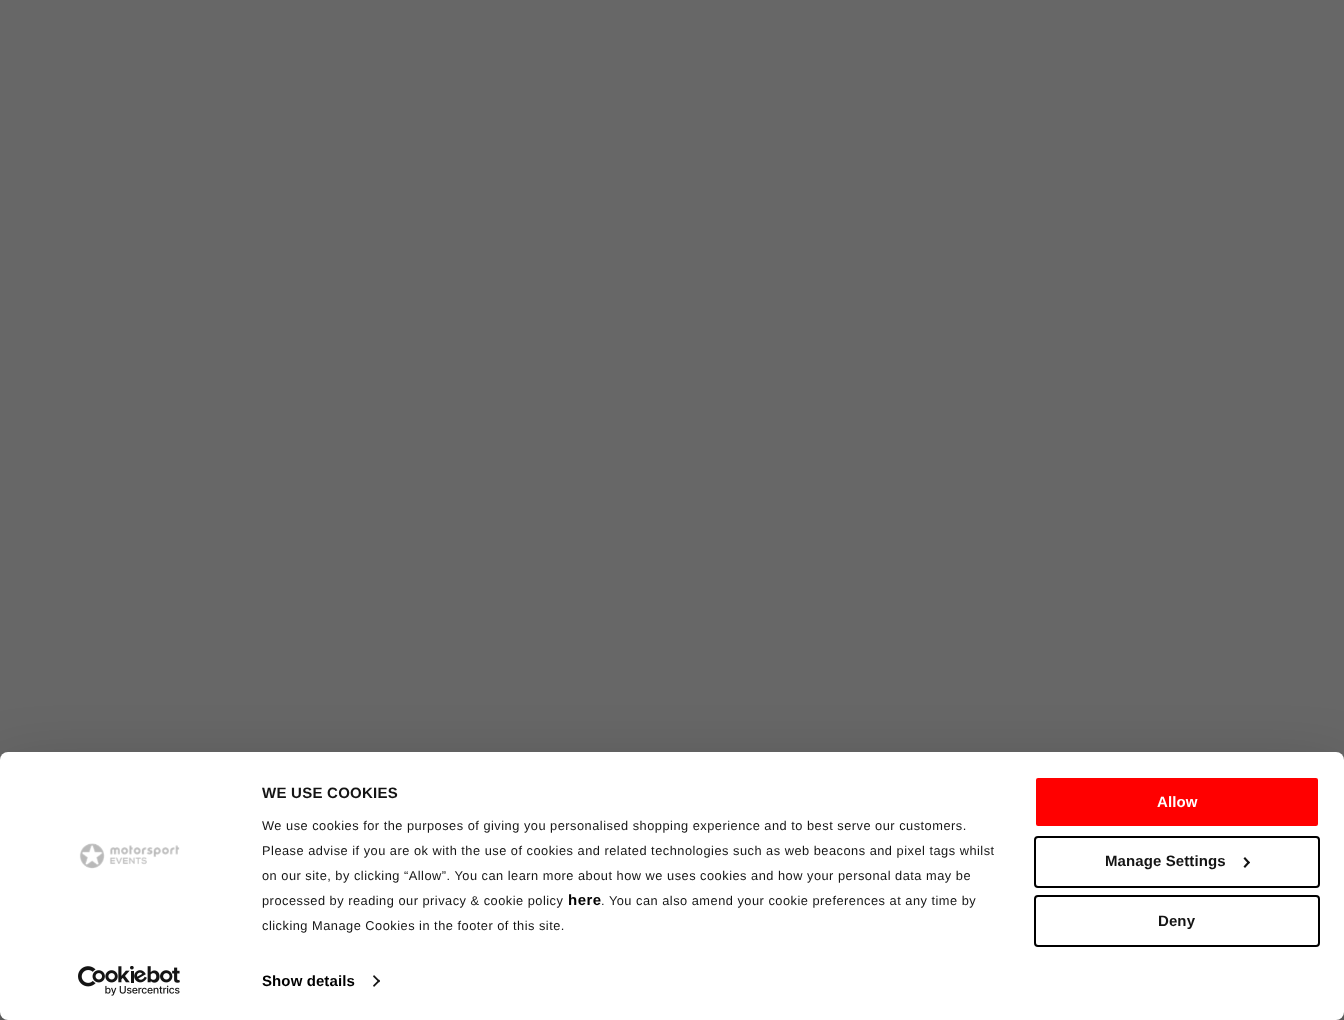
async function draw(canvas) {
  canvas.width = 1344
  canvas.height = 1020
  const ctx = canvas.getContext('2d')
  ctx.miterLimit = 4
  ctx.fontKerning = 'normal'
  async function loadImage(src) {
    const img = new Image()
    img.src = src
    await img.decode()
    return img
  }

  ctx.fillStyle = '#676767'
  ctx.fillRect(0, 0, 1344, 1020)
  ctx.fillStyle = '#0000004d'
  ctx.filter = 'blur(35px)'
  ctx.beginPath()
  ctx.roundRect(0, 782, 1344, 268, 8)
  ctx.fill()
  ctx.filter = 'none'
  ctx.fillStyle = '#fff'
  ctx.beginPath()
  ctx.roundRect(0, 752, 1344, 268, 8)
  ctx.fill()
  ctx.drawImage(await loadImage('image0.png'), 79, 843, 101, 26)
  ctx.drawImage(await loadImage('image1.png'), 78, 966, 102, 30)
  ctx.letterSpacing = '0.25px'
  ctx.font = 'bold 15px Liberation Sans'
  ctx.fillStyle = '#141414'
  ctx.fillText('WE USE COOKIES', 262, 798)
  ctx.letterSpacing = '0.5px'
  ctx.font = '12.8px Liberation Sans'
  ctx.fillText('We use cookies for the purposes of giving you personalised shopping experience and to best serve our customers.', 262, 830)
  ctx.fillText('Please advise if you are ok with the use of cookies and related technologies such as web beacons and pixel tags whilst', 262, 855)
  ctx.fillText('on our site, by clicking “Allow”. You can learn more about how we uses cookies and how your personal data may be', 262, 880)
  ctx.fillText('processed by reading our privacy & cookie policy', 262, 905)
  ctx.font = 'bold 15px Liberation Sans'
  ctx.fillStyle = '#000'
  ctx.fillText('here', 568, 905)
  ctx.font = '12.8px Liberation Sans'
  ctx.fillStyle = '#141414'
  ctx.fillText('. You can also amend your cookie preferences at any time by', 601, 905)
  ctx.fillText('clicking Manage Cookies in the footer of this site.', 262, 930)
  ctx.letterSpacing = '0.1px'
  ctx.font = 'bold 15px Liberation Sans'
  ctx.fillStyle = '#000'
  ctx.fillText('Show details', 262, 986)
  ctx.fillStyle = '#141414'
  ctx.beginPath()
  ctx.moveTo(374, 975)
  ctx.lineTo(380, 981)
  ctx.lineTo(379, 982.5)
  ctx.lineTo(373, 976.5)
  ctx.closePath()
  ctx.fill()
  ctx.beginPath()
  ctx.moveTo(379, 979.5)
  ctx.lineTo(380, 981)
  ctx.lineTo(374, 987)
  ctx.lineTo(373, 985.5)
  ctx.closePath()
  ctx.fill()
  ctx.fillStyle = '#f00'
  ctx.beginPath()
  ctx.roundRect(1035, 777, 284, 50, 3)
  ctx.fill()
  ctx.strokeStyle = '#fff'
  ctx.lineWidth = 2
  ctx.stroke()
  ctx.fillStyle = '#fff'
  ctx.fillText('Allow', 1157, 807)
  ctx.beginPath()
  ctx.roundRect(1035, 837, 284, 50, 3)
  ctx.strokeStyle = '#000'
  ctx.stroke()
  ctx.fillStyle = '#141414'
  ctx.fillText('Manage Settings', 1105, 866)
  ctx.beginPath()
  ctx.moveTo(1245, 857)
  ctx.lineTo(1250, 862.5)
  ctx.lineTo(1248.5, 864)
  ctx.lineTo(1243.5, 858.5)
  ctx.closePath()
  ctx.fill()
  ctx.beginPath()
  ctx.moveTo(1248.5, 861)
  ctx.lineTo(1250, 862.5)
  ctx.lineTo(1245, 868)
  ctx.lineTo(1243.5, 866.5)
  ctx.closePath()
  ctx.fill()
  ctx.beginPath()
  ctx.roundRect(1035, 896, 284, 50, 3)
  ctx.stroke()
  ctx.fillText('Deny', 1158, 926)
}

draw(document.querySelector('canvas'))
